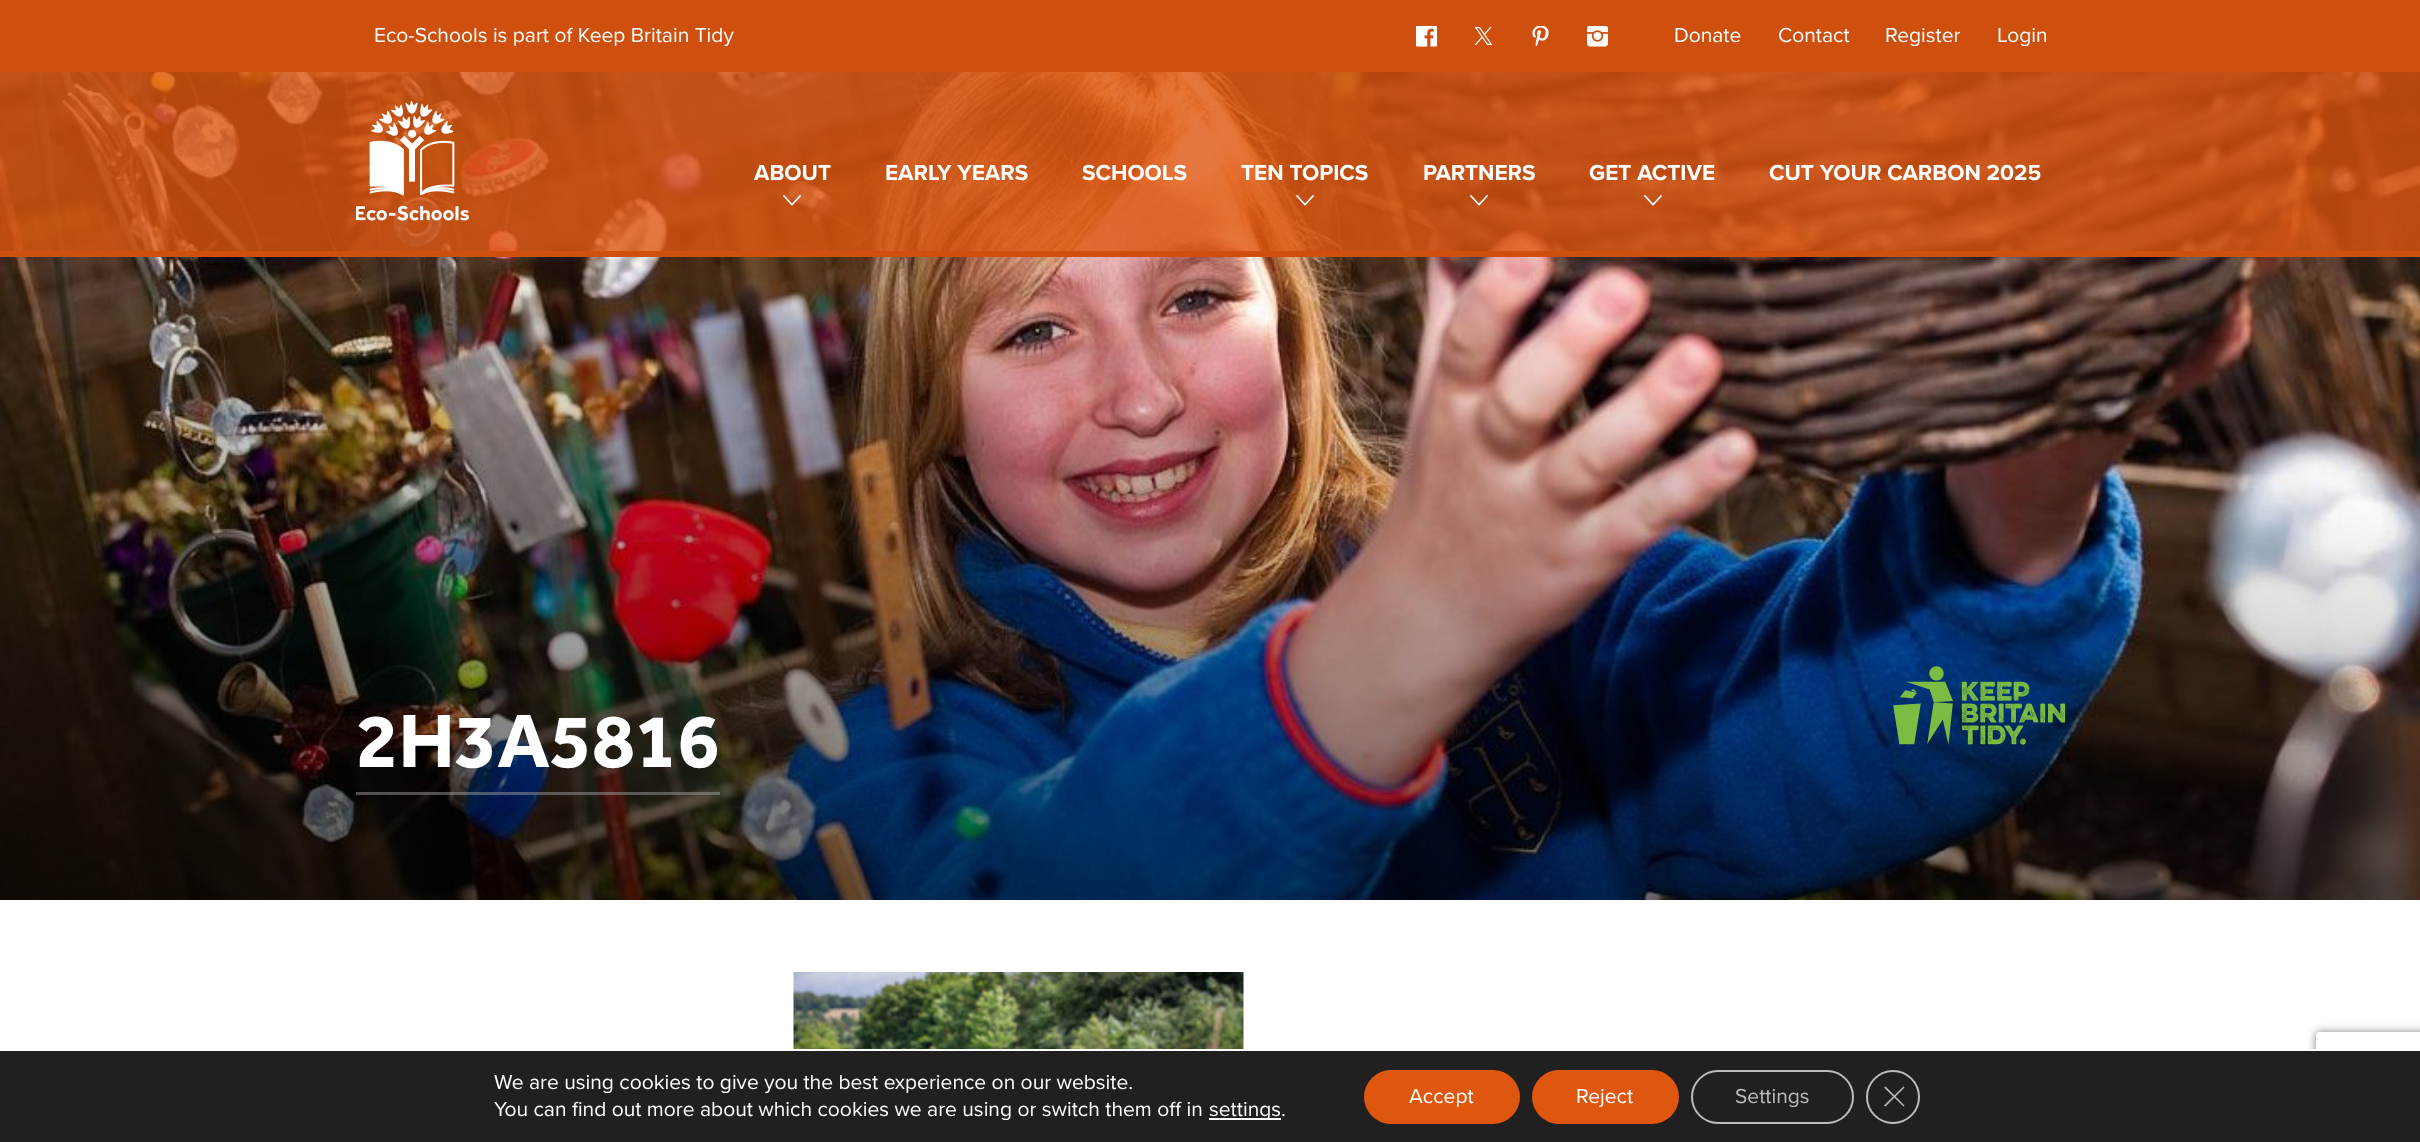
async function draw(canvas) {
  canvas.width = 2420
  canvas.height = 1142
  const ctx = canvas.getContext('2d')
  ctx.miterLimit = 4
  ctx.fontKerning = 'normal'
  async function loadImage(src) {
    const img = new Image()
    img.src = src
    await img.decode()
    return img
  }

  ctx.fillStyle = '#fff'
  ctx.fillRect(0, 0, 2420, 1142)
  ctx.drawImage(await loadImage('image9.png'), 0, 72, 2420, 828)
  ctx.fillStyle = '#df560fcc'
  ctx.fillRect(0, 72, 2420, 179)
  ctx.fillStyle = '#ce4f0e'
  ctx.fillRect(0, 0, 2420, 72)
  ctx.font = '21px Proxima Nova'
  ctx.fillStyle = '#fff'
  ctx.fillText('Eco-Schools is part of Keep Britain Tidy', 374, 42)
  ctx.drawImage(await loadImage('image0.png'), 1416, 26, 21, 21)
  ctx.drawImage(await loadImage('image1.png'), 1474, 27, 19, 18)
  ctx.drawImage(await loadImage('image2.png'), 1532, 26, 17, 21)
  ctx.drawImage(await loadImage('image3.png'), 1587, 26, 21, 21)
  ctx.fillText('Donate', 1674, 42)
  ctx.fillText('Contact', 1778, 42)
  ctx.fillText('Register', 1885, 42)
  ctx.fillText('Login', 1997, 42)
  ctx.fillStyle = '#ce4f0e'
  ctx.fillRect(0, 251, 2420, 6)
  ctx.drawImage(await loadImage('image4.png'), 356, 101, 113, 120)
  ctx.font = 'bold 22.5px Proxima Nova'
  ctx.fillStyle = '#fff'
  ctx.fillText('ABOUT', 754, 180)
  ctx.drawImage(await loadImage('image5.png'), 783, 195, 18, 11)
  ctx.fillText('EARLY YEARS', 885, 180)
  ctx.fillText('SCHOOLS', 1082, 180)
  ctx.fillText('TEN TOPICS', 1241, 180)
  ctx.drawImage(await loadImage('image6.png'), 1296, 195, 18, 11)
  ctx.fillText('PARTNERS', 1423, 180)
  ctx.drawImage(await loadImage('image7.png'), 1470, 195, 18, 11)
  ctx.fillText('GET ACTIVE', 1589, 180)
  ctx.drawImage(await loadImage('image8.png'), 1644, 195, 18, 11)
  ctx.fillText('CUT YOUR CARBON 2025', 1769, 180)
  ctx.fillStyle = '#9c9c9c80'
  ctx.fillRect(356, 792, 364, 3)
  ctx.font = 'bold 78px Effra'
  ctx.fillStyle = '#fff'
  ctx.fillText('2H3A5816', 356, 767)
  ctx.drawImage(await loadImage('image10.png'), 1893, 666, 173, 79)
  ctx.drawImage(await loadImage('image11.png'), 793, 972, 451, 77)
  ctx.save()
  ctx.beginPath()
  ctx.moveTo(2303, 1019)
  ctx.lineTo(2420, 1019)
  ctx.lineTo(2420, 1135)
  ctx.lineTo(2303, 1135)
  ctx.closePath()
  ctx.moveTo(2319, 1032)
  ctx.lineTo(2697, 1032)
  ctx.bezierCurveTo(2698.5, 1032, 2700, 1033.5, 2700, 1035)
  ctx.lineTo(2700, 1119)
  ctx.bezierCurveTo(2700, 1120.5, 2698.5, 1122, 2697, 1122)
  ctx.lineTo(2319, 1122)
  ctx.bezierCurveTo(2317.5, 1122, 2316, 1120.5, 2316, 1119)
  ctx.lineTo(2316, 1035)
  ctx.bezierCurveTo(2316, 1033.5, 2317.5, 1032, 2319, 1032)
  ctx.closePath()
  ctx.clip('evenodd')
  ctx.fillStyle = '#808080'
  ctx.filter = 'blur(4px)'
  ctx.beginPath()
  ctx.roundRect(2316, 1032, 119, 90, 3)
  ctx.fill()
  ctx.filter = 'none'
  ctx.restore()
  ctx.fillStyle = '#202020'
  ctx.fillRect(0, 1051, 2420, 91)
  ctx.fillStyle = '#fff'
  ctx.fillRect(2308, 1049, 8, 2)
  ctx.font = '21px Proxima Nova'
  ctx.fillText('We are using cookies to give you the best experience on our website.', 494, 1089)
  ctx.fillText('You can find out more about which cookies we are using or switch them off in', 494, 1116)
  ctx.fillRect(1209, 1118, 72, 2)
  ctx.fillText('settings.', 1209, 1116)
  ctx.fillStyle = '#df560f'
  ctx.beginPath()
  ctx.roundRect(1364, 1070, 156, 54, 27)
  ctx.fill()
  ctx.fillStyle = '#fff'
  ctx.fillText('Accept', 1409, 1103)
  ctx.fillStyle = '#df560f'
  ctx.beginPath()
  ctx.roundRect(1532, 1070, 147, 54, 27)
  ctx.fill()
  ctx.fillStyle = '#fff'
  ctx.fillText('Reject', 1576, 1103)
  ctx.beginPath()
  ctx.roundRect(1692, 1071, 161, 52, 26)
  ctx.strokeStyle = '#bcbcbc'
  ctx.lineWidth = 2
  ctx.stroke()
  ctx.fillStyle = '#bcbcbc'
  ctx.fillText('Settings', 1735, 1103)
  ctx.beginPath()
  ctx.arc(1893, 1097, 26, 0, 2 * Math.PI)
  ctx.stroke()
  ctx.beginPath()
  ctx.moveTo(1903.5, 1086.5)
  ctx.lineTo(1904.5, 1087.5)
  ctx.lineTo(1885.5, 1106.5)
  ctx.lineTo(1884, 1105.5)
  ctx.closePath()
  ctx.fill()
  ctx.beginPath()
  ctx.moveTo(1884, 1087.5)
  ctx.lineTo(1885.5, 1086.5)
  ctx.lineTo(1904.5, 1105.5)
  ctx.lineTo(1903.5, 1106.5)
  ctx.closePath()
  ctx.fill()
}

draw(document.querySelector('canvas'))
